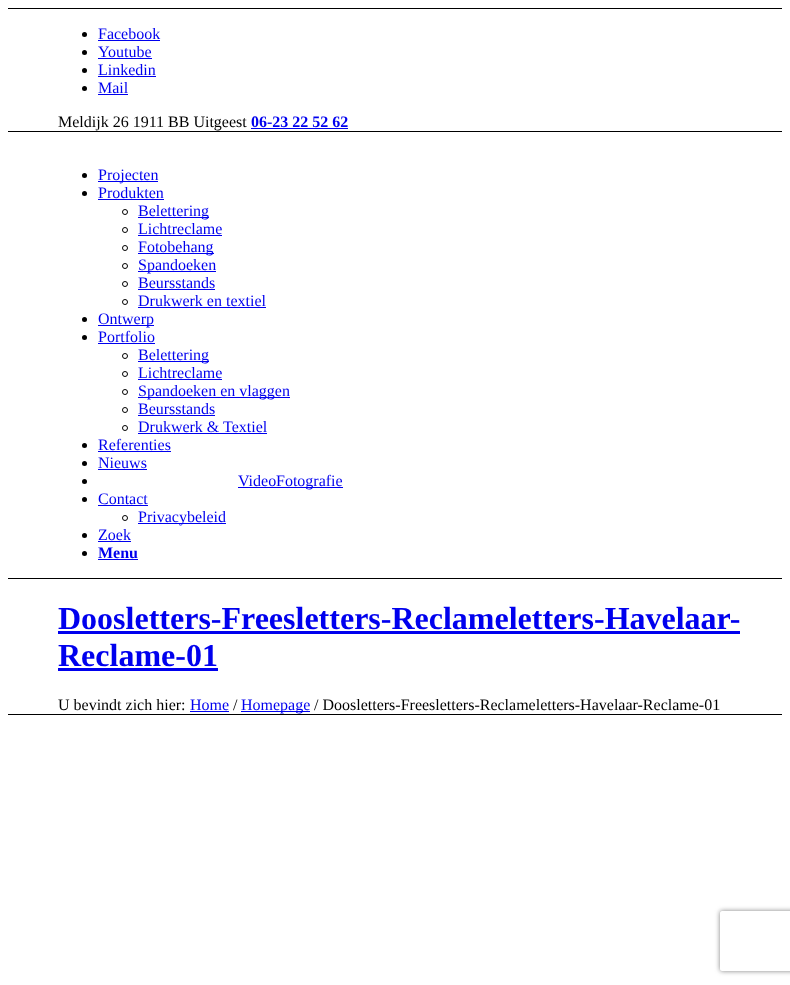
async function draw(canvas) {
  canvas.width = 790
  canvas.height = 985
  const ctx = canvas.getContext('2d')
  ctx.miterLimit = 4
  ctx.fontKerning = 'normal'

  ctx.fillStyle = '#fff'
  ctx.fillRect(0, 0, 790, 985)
  ctx.fillStyle = '#000'
  ctx.fillRect(8, 8, 774, 1)
  ctx.beginPath()
  ctx.arc(84.5, 34.5, 2.5, 0, 2 * Math.PI)
  ctx.fill()
  ctx.font = '16px Liberation Serif'
  ctx.fillStyle = '#00e'
  ctx.fillText('Facebook', 98, 39)
  ctx.fillRect(98, 40, 62, 1)
  ctx.fillStyle = '#000'
  ctx.beginPath()
  ctx.arc(84.5, 52.5, 2.5, 0, 2 * Math.PI)
  ctx.fill()
  ctx.fillStyle = '#00e'
  ctx.fillText('Youtube', 98, 57)
  ctx.fillRect(98, 58, 54, 1)
  ctx.fillStyle = '#000'
  ctx.beginPath()
  ctx.arc(84.5, 70.5, 2.5, 0, 2 * Math.PI)
  ctx.fill()
  ctx.fillStyle = '#00e'
  ctx.fillText('Linkedin', 98, 75)
  ctx.fillRect(98, 76, 58, 1)
  ctx.fillStyle = '#000'
  ctx.beginPath()
  ctx.arc(84.5, 88.5, 2.5, 0, 2 * Math.PI)
  ctx.fill()
  ctx.fillStyle = '#00e'
  ctx.fillText('Mail', 98, 93)
  ctx.fillRect(98, 94, 30, 1)
  ctx.fillStyle = '#000'
  ctx.fillText('Meldijk 26 1911 BB Uitgeest', 58, 127)
  ctx.font = 'bold 16px Liberation Serif'
  ctx.fillStyle = '#00e'
  ctx.fillText('06-23 22 52 62', 251, 127)
  ctx.fillRect(251, 128, 97, 1)
  ctx.fillStyle = '#000'
  ctx.fillRect(8, 131, 774, 1)
  ctx.beginPath()
  ctx.arc(84.5, 175.5, 2.5, 0, 2 * Math.PI)
  ctx.fill()
  ctx.fillStyle = '#00e'
  ctx.fillRect(98, 181, 60, 1)
  ctx.font = '16px Liberation Serif'
  ctx.fillText('Projecten', 98, 180)
  ctx.fillStyle = '#000'
  ctx.beginPath()
  ctx.arc(84.5, 193.5, 2.5, 0, 2 * Math.PI)
  ctx.fill()
  ctx.fillStyle = '#00e'
  ctx.fillText('Produkten', 98, 198)
  ctx.fillRect(98, 199, 66, 1)
  ctx.beginPath()
  ctx.arc(125, 212, 2.5, 0, 2 * Math.PI)
  ctx.strokeStyle = '#000'
  ctx.stroke()
  ctx.fillRect(138, 217, 71, 1)
  ctx.fillText('Belettering', 138, 216)
  ctx.beginPath()
  ctx.arc(125, 230, 2.5, 0, 2 * Math.PI)
  ctx.stroke()
  ctx.fillText('Lichtreclame', 138, 234)
  ctx.fillRect(138, 235, 84, 1)
  ctx.beginPath()
  ctx.arc(125, 248, 2.5, 0, 2 * Math.PI)
  ctx.stroke()
  ctx.fillRect(138, 253, 76, 1)
  ctx.fillText('Fotobehang', 138, 252)
  ctx.beginPath()
  ctx.arc(125, 266, 2.5, 0, 2 * Math.PI)
  ctx.stroke()
  ctx.fillRect(138, 271, 78, 1)
  ctx.fillText('Spandoeken', 138, 270)
  ctx.beginPath()
  ctx.arc(125, 284, 2.5, 0, 2 * Math.PI)
  ctx.stroke()
  ctx.fillText('Beursstands', 138, 288)
  ctx.fillRect(138, 289, 77, 1)
  ctx.beginPath()
  ctx.arc(125, 302, 2.5, 0, 2 * Math.PI)
  ctx.stroke()
  ctx.fillText('Drukwerk en textiel', 138, 306)
  ctx.fillRect(138, 307, 128, 1)
  ctx.fillStyle = '#000'
  ctx.beginPath()
  ctx.arc(84.5, 319.5, 2.5, 0, 2 * Math.PI)
  ctx.fill()
  ctx.fillStyle = '#00e'
  ctx.fillRect(98, 325, 56, 1)
  ctx.fillText('Ontwerp', 98, 324)
  ctx.fillStyle = '#000'
  ctx.beginPath()
  ctx.arc(84.5, 337.5, 2.5, 0, 2 * Math.PI)
  ctx.fill()
  ctx.fillStyle = '#00e'
  ctx.fillText('Portfolio', 98, 342)
  ctx.fillRect(98, 343, 57, 1)
  ctx.beginPath()
  ctx.arc(125, 356, 2.5, 0, 2 * Math.PI)
  ctx.stroke()
  ctx.fillRect(138, 361, 71, 1)
  ctx.fillText('Belettering', 138, 360)
  ctx.beginPath()
  ctx.arc(125, 374, 2.5, 0, 2 * Math.PI)
  ctx.stroke()
  ctx.fillText('Lichtreclame', 138, 378)
  ctx.fillRect(138, 379, 84, 1)
  ctx.beginPath()
  ctx.arc(125, 392, 2.5, 0, 2 * Math.PI)
  ctx.stroke()
  ctx.fillRect(138, 397, 152, 1)
  ctx.fillText('Spandoeken en vlaggen', 138, 396)
  ctx.beginPath()
  ctx.arc(125, 410, 2.5, 0, 2 * Math.PI)
  ctx.stroke()
  ctx.fillText('Beursstands', 138, 414)
  ctx.fillRect(138, 415, 77, 1)
  ctx.beginPath()
  ctx.arc(125, 428, 2.5, 0, 2 * Math.PI)
  ctx.stroke()
  ctx.fillText('Drukwerk & Textiel', 138, 432)
  ctx.fillRect(138, 433, 129, 1)
  ctx.fillStyle = '#000'
  ctx.beginPath()
  ctx.arc(84.5, 445.5, 2.5, 0, 2 * Math.PI)
  ctx.fill()
  ctx.fillStyle = '#00e'
  ctx.fillText('Referenties', 98, 450)
  ctx.fillRect(98, 451, 73, 1)
  ctx.fillStyle = '#000'
  ctx.beginPath()
  ctx.arc(84.5, 463.5, 2.5, 0, 2 * Math.PI)
  ctx.fill()
  ctx.fillStyle = '#00e'
  ctx.fillText('Nieuws', 98, 468)
  ctx.fillRect(98, 469, 49, 1)
  ctx.fillStyle = '#000'
  ctx.beginPath()
  ctx.arc(84.5, 481.5, 2.5, 0, 2 * Math.PI)
  ctx.fill()
  ctx.fillStyle = '#00e'
  ctx.fillText('Video', 238, 486)
  ctx.fillRect(238, 487, 105, 1)
  ctx.fillText('Fotografie', 276, 486)
  ctx.fillStyle = '#000'
  ctx.beginPath()
  ctx.arc(84.5, 499.5, 2.5, 0, 2 * Math.PI)
  ctx.fill()
  ctx.fillStyle = '#00e'
  ctx.fillText('Contact', 98, 504)
  ctx.fillRect(98, 505, 50, 1)
  ctx.beginPath()
  ctx.arc(125, 518, 2.5, 0, 2 * Math.PI)
  ctx.stroke()
  ctx.fillRect(138, 523, 88, 1)
  ctx.fillText('Privacybeleid', 138, 522)
  ctx.fillStyle = '#000'
  ctx.beginPath()
  ctx.arc(84.5, 535.5, 2.5, 0, 2 * Math.PI)
  ctx.fill()
  ctx.fillStyle = '#00e'
  ctx.fillText('Zoek', 98, 540)
  ctx.fillRect(98, 541, 33, 1)
  ctx.fillStyle = '#000'
  ctx.beginPath()
  ctx.arc(84.5, 553.5, 2.5, 0, 2 * Math.PI)
  ctx.fill()
  ctx.font = 'bold 16px Liberation Serif'
  ctx.fillStyle = '#00e'
  ctx.fillText('Menu', 98, 558)
  ctx.fillRect(98, 559, 40, 1)
  ctx.fillStyle = '#000'
  ctx.fillRect(8, 578, 774, 1)
  ctx.font = 'bold 32px Liberation Serif'
  ctx.fillStyle = '#00e'
  ctx.fillText('Doosletters-Freesletters-Reclameletters-Havelaar-', 58, 629)
  ctx.fillRect(58, 631, 682, 3)
  ctx.fillText('Reclame-01', 58, 666)
  ctx.fillRect(58, 668, 160, 3)
  ctx.font = '16px Liberation Serif'
  ctx.fillStyle = '#000'
  ctx.fillText('U bevindt zich hier:', 58, 710)
  ctx.fillStyle = '#00e'
  ctx.fillText('Home', 190, 710)
  ctx.fillRect(190, 711, 39, 1)
  ctx.fillStyle = '#000'
  ctx.fillText('/', 233, 710)
  ctx.fillStyle = '#00e'
  ctx.fillRect(241, 711, 69, 1)
  ctx.fillText('Homepage', 241, 710)
  ctx.fillStyle = '#000'
  ctx.fillText('/ Doosletters-Freesletters-Reclameletters-Havelaar-Reclame-01', 314, 710)
  ctx.fillRect(8, 714, 774, 1)
  ctx.save()
  ctx.beginPath()
  ctx.moveTo(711, 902)
  ctx.lineTo(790, 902)
  ctx.lineTo(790, 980)
  ctx.lineTo(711, 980)
  ctx.closePath()
  ctx.moveTo(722, 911)
  ctx.lineTo(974, 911)
  ctx.bezierCurveTo(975, 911, 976, 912, 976, 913)
  ctx.lineTo(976, 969)
  ctx.bezierCurveTo(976, 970, 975, 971, 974, 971)
  ctx.lineTo(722, 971)
  ctx.bezierCurveTo(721, 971, 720, 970, 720, 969)
  ctx.lineTo(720, 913)
  ctx.bezierCurveTo(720, 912, 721, 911, 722, 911)
  ctx.closePath()
  ctx.clip('evenodd')
  ctx.fillStyle = '#808080'
  ctx.filter = 'blur(2.5px)'
  ctx.beginPath()
  ctx.roundRect(720, 911, 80, 60, 2)
  ctx.fill()
  ctx.filter = 'none'
  ctx.restore()
}

draw(document.querySelector('canvas'))
